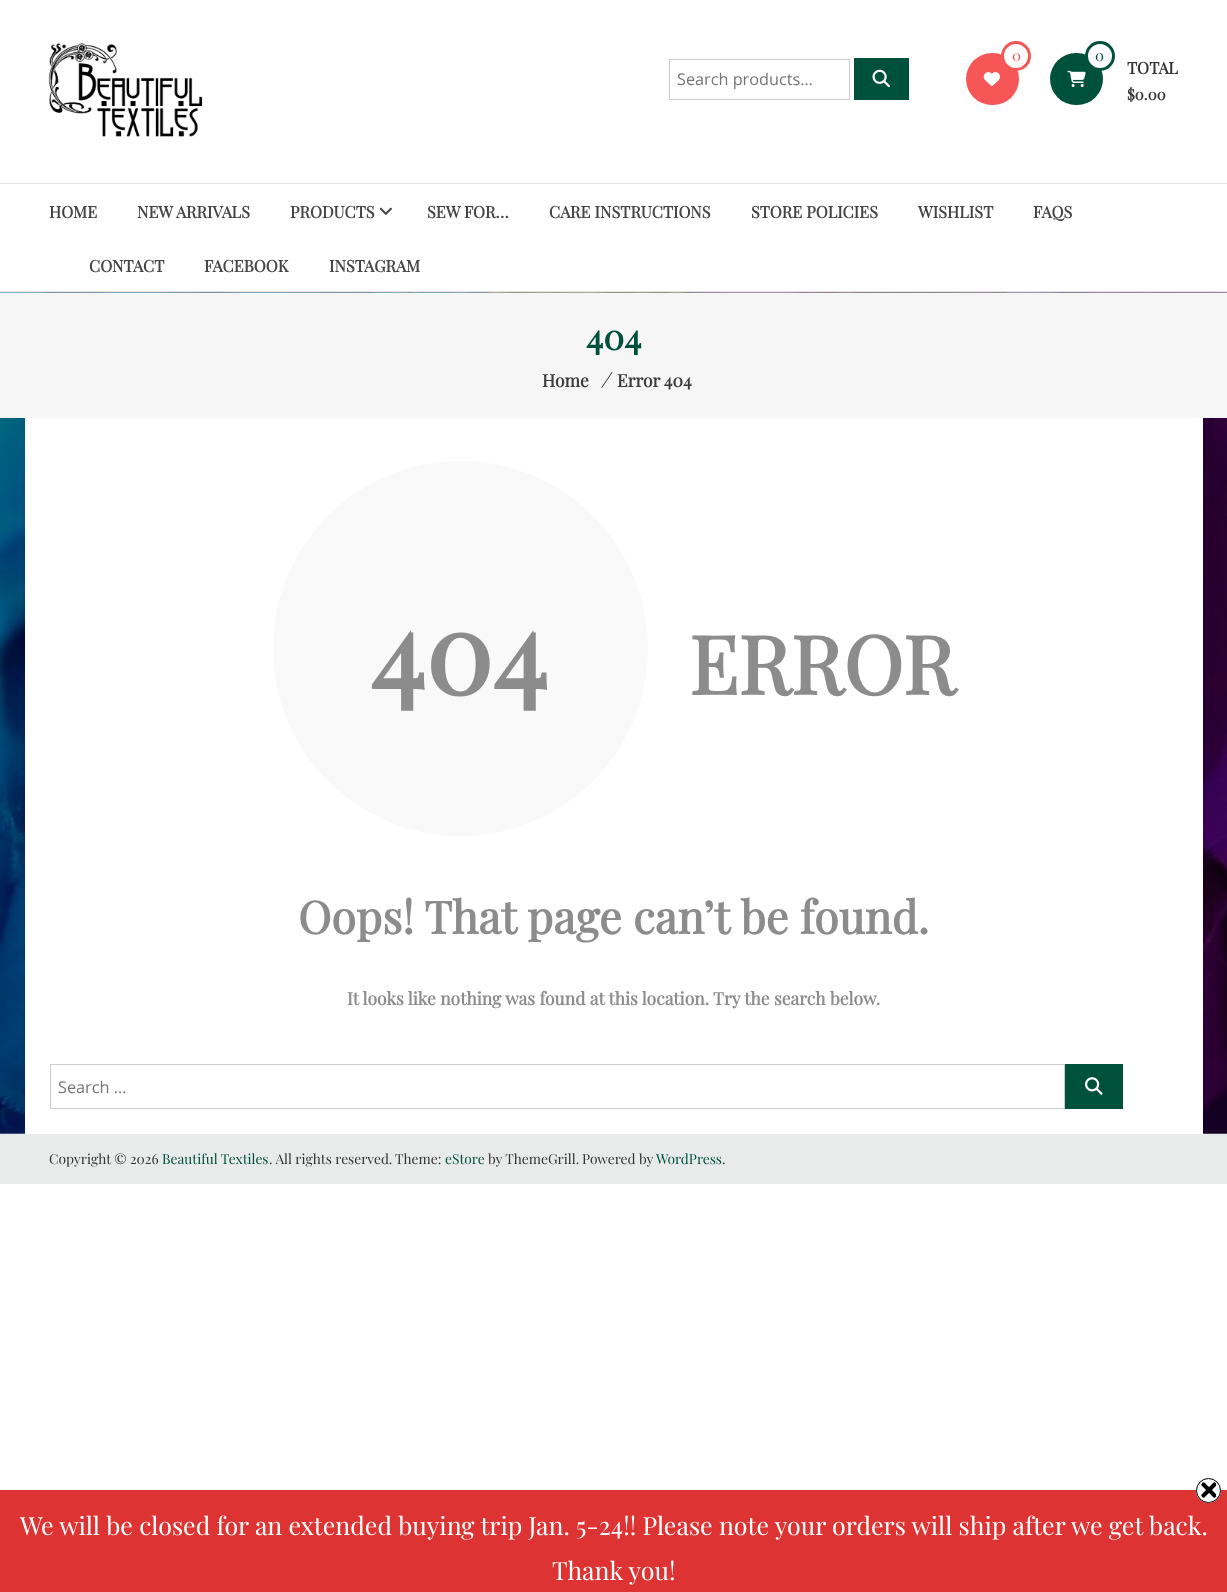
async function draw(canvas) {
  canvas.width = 1227
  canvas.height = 1592
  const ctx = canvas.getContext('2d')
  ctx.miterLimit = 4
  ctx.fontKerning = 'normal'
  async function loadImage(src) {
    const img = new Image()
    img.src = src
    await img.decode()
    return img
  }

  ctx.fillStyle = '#fff'
  ctx.fillRect(0, 0, 1227, 1592)
  ctx.drawImage(await loadImage('image0.png'), 48, 43, 155, 94)
  ctx.strokeStyle = '#ccc'
  ctx.strokeRect(669.5, 59.5, 180, 40)
  ctx.font = '16.25px Open Sans'
  ctx.fillStyle = '#757575'
  ctx.fillText('Search products…', 677, 85)
  ctx.fillStyle = '#00513b'
  ctx.fillRect(854, 58, 55, 42)
  ctx.drawImage(await loadImage('image1.png'), 872, 69, 18, 19)
  ctx.fillStyle = '#f65656'
  ctx.beginPath()
  ctx.roundRect(966, 53, 53, 52, 26)
  ctx.fill()
  ctx.fillStyle = '#fff'
  ctx.beginPath()
  ctx.arc(1016, 56, 13.5, 0, 2 * Math.PI)
  ctx.fill()
  ctx.strokeStyle = '#f65656'
  ctx.lineWidth = 3
  ctx.stroke()
  ctx.font = '15px Playfair Display'
  ctx.fillStyle = '#f65656'
  ctx.fillText('0', 1012, 61)
  ctx.drawImage(await loadImage('image2.png'), 983, 72, 17, 14)
  ctx.fillStyle = '#00513b'
  ctx.beginPath()
  ctx.roundRect(1050, 53, 53, 52, 26)
  ctx.fill()
  ctx.drawImage(await loadImage('image3.png'), 1067, 70, 19, 17)
  ctx.fillStyle = '#fff'
  ctx.beginPath()
  ctx.arc(1100, 56, 13.5, 0, 2 * Math.PI)
  ctx.fill()
  ctx.strokeStyle = '#00513b'
  ctx.stroke()
  ctx.fillStyle = '#00513b'
  ctx.fillText('0', 1095, 61)
  ctx.font = 'bold 16.25px Playfair Display'
  ctx.fillStyle = '#333'
  ctx.fillText('TOTAL', 1127, 74)
  ctx.font = 'bold 15px Playfair Display'
  ctx.fillText('$0.00', 1127, 100)
  ctx.fillStyle = '#e5e5e5'
  ctx.fillRect(0, 183, 1227, 1)
  ctx.fillRect(0, 291, 1227, 1)
  ctx.font = 'bold 16.25px Playfair Display'
  ctx.fillStyle = '#454545'
  ctx.fillText('HOME', 49, 218)
  ctx.fillText('NEW ARRIVALS', 137, 218)
  ctx.fillText('PRODUCTS', 290, 218)
  ctx.drawImage(await loadImage('image4.png'), 379, 207, 13, 8)
  ctx.fillText('SEW FOR…', 427, 218)
  ctx.fillText('CARE INSTRUCTIONS', 549, 218)
  ctx.fillText('STORE POLICIES', 751, 218)
  ctx.fillText('WISHLIST', 918, 218)
  ctx.fillText('FAQS', 1033, 218)
  ctx.fillText('CONTACT', 89, 272)
  ctx.fillText('FACEBOOK', 204, 272)
  ctx.fillText('INSTAGRAM', 329, 272)
  ctx.drawImage(await loadImage('image5.png'), 0, 292, 1227, 842)
  ctx.fillStyle = '#f6f6f6'
  ctx.fillRect(0, 293, 1227, 125)
  ctx.font = 'bold 35px Playfair Display'
  ctx.fillStyle = '#00513b'
  ctx.fillText('404', 586, 350)
  ctx.font = 'bold 17.5px Playfair Display'
  ctx.fillStyle = '#3b3b3b'
  ctx.fillText('Home', 542, 387)
  ctx.fillText('⁄', 606, 387)
  ctx.fillText('Error 404', 617, 387)
  ctx.fillStyle = '#fff'
  ctx.fillRect(25, 418, 1178, 716)
  ctx.fillStyle = '#f9f9f9'
  ctx.beginPath()
  ctx.arc(460.5, 648.5, 187.5, 0, 2 * Math.PI)
  ctx.fill()
  ctx.font = 'bold 112px Playfair Display'
  ctx.fillStyle = '#8c8c8c'
  ctx.fillText('404', 370, 695)
  ctx.font = 'bold 81px Playfair Display'
  ctx.fillText('ERROR', 689, 695)
  ctx.font = 'bold 45px Playfair Display'
  ctx.fillText('Oops! That page can’t be found.', 298, 934)
  ctx.font = 'bold 17.5px Playfair Display'
  ctx.fillText('It looks like nothing was found at this location. Try the search below.', 347, 1005)
  ctx.strokeStyle = '#ccc'
  ctx.lineWidth = 1
  ctx.strokeRect(50.5, 1064.5, 1014, 44)
  ctx.font = '16.25px Open Sans'
  ctx.fillStyle = '#757575'
  ctx.fillText('Search …', 58, 1093)
  ctx.fillStyle = '#00513b'
  ctx.fillRect(1065, 1064, 58, 45)
  ctx.drawImage(await loadImage('image6.png'), 1085, 1077, 18, 18)
  ctx.fillStyle = '#e9ebeb'
  ctx.fillRect(0, 1134, 1227, 50)
  ctx.font = '13.75px Playfair Display'
  ctx.fillStyle = '#333'
  ctx.fillText('Copyright © 2026', 49, 1164)
  ctx.fillStyle = '#00513b'
  ctx.fillText('Beautiful Textiles', 162, 1164)
  ctx.fillStyle = '#333'
  ctx.fillText('. All rights reserved.', 269, 1164)
  ctx.fillText('Theme:', 395, 1164)
  ctx.fillStyle = '#00513b'
  ctx.fillText('eStore', 445, 1164)
  ctx.fillStyle = '#333'
  ctx.fillText('by ThemeGrill.', 488, 1164)
  ctx.fillText('Powered by', 582, 1164)
  ctx.fillStyle = '#00513b'
  ctx.fillText('WordPress', 656, 1164)
  ctx.fillStyle = '#333'
  ctx.fillText('.', 722, 1164)
  ctx.fillStyle = '#d33'
  ctx.fillRect(0, 1490, 1227, 102)
  ctx.fillStyle = '#fff'
  ctx.beginPath()
  ctx.arc(1208.5, 1490.5, 12.5, 0, 2 * Math.PI)
  ctx.fill()
  ctx.drawImage(await loadImage('image7.png'), 1201, 1482, 15, 16)
  ctx.beginPath()
  ctx.arc(1208.5, 1490.5, 12, 0, 2 * Math.PI)
  ctx.strokeStyle = '#000'
  ctx.stroke()
  ctx.font = '25px Playfair Display'
  ctx.fillText('We will be closed for an extended buying trip Jan. 5-24!! Please note your orders will ship after we get back.', 20, 1535)
  ctx.fillText('Thank you!', 552, 1580)
}

draw(document.querySelector('canvas'))
